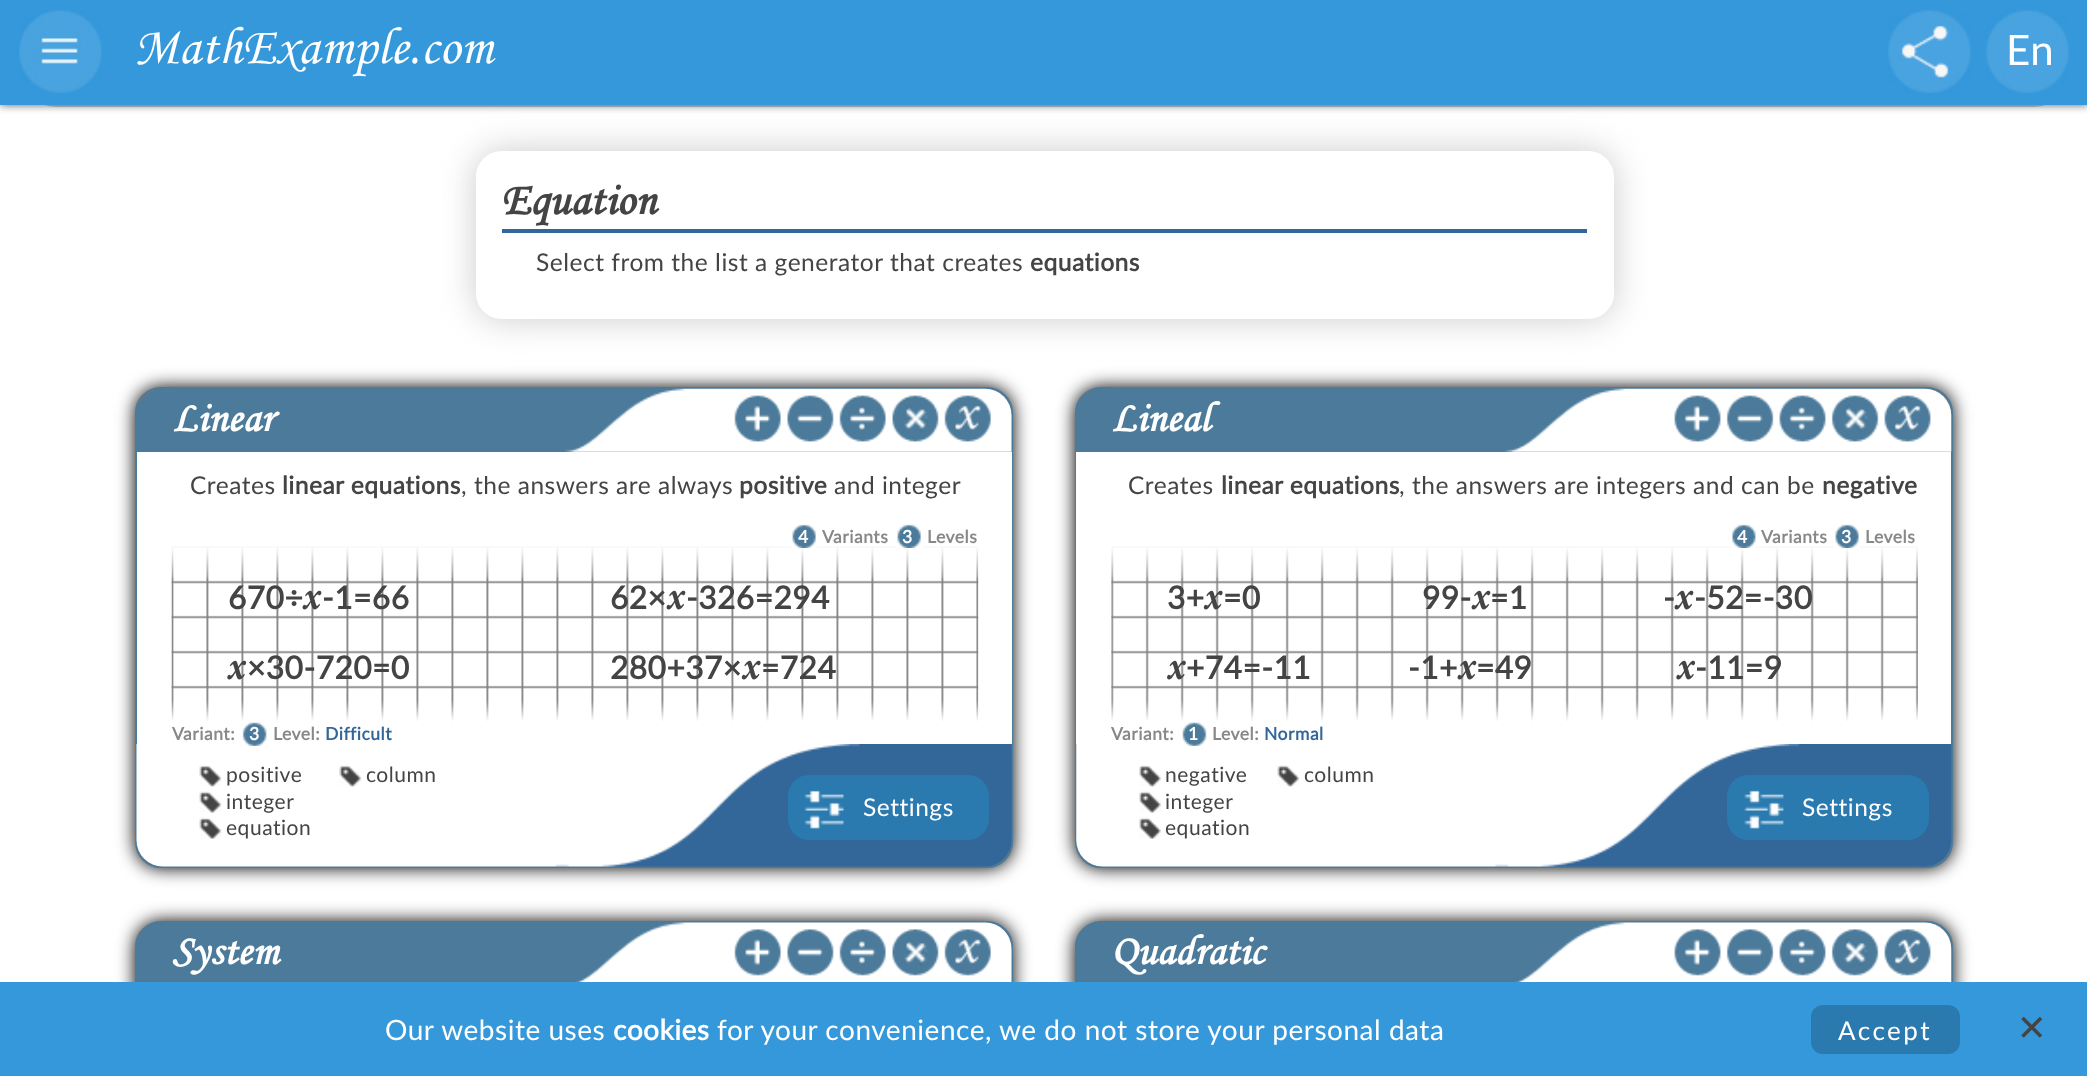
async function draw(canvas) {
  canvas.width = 2087
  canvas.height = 1076
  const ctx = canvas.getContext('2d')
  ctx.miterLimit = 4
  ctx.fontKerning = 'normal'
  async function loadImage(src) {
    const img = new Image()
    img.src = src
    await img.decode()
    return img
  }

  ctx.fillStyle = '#fff'
  ctx.fillRect(0, 0, 2087, 1076)
  ctx.beginPath()
  ctx.roundRect(22, 24, 2046, 82, [0, 0, 34, 34])
  ctx.strokeStyle = '#b8c7d0'
  ctx.lineWidth = 2
  ctx.stroke()
  ctx.fillStyle = '#5e5e5e'
  ctx.filter = 'blur(4.5px)'
  ctx.beginPath()
  ctx.rect(0, 0, 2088, 105)
  ctx.fill()
  ctx.filter = 'none'
  ctx.save()
  ctx.beginPath()
  ctx.moveTo(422, 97)
  ctx.lineTo(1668, 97)
  ctx.lineTo(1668, 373)
  ctx.lineTo(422, 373)
  ctx.closePath()
  ctx.moveTo(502, 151)
  ctx.lineTo(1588, 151)
  ctx.bezierCurveTo(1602.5, 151, 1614, 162.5, 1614, 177)
  ctx.lineTo(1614, 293)
  ctx.bezierCurveTo(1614, 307.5, 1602.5, 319, 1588, 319)
  ctx.lineTo(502, 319)
  ctx.bezierCurveTo(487.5, 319, 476, 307.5, 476, 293)
  ctx.lineTo(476, 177)
  ctx.bezierCurveTo(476, 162.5, 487.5, 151, 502, 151)
  ctx.closePath()
  ctx.clip('evenodd')
  ctx.fillStyle = '#cbcbcb'
  ctx.filter = 'blur(17.5px)'
  ctx.beginPath()
  ctx.roundRect(476, 151, 1138, 168, 26)
  ctx.fill()
  ctx.filter = 'none'
  ctx.restore()
  ctx.fillStyle = '#3498db'
  ctx.fillRect(0, 0, 2087, 105)
  ctx.drawImage(await loadImage('image0.png'), 19, 10, 83, 83)
  ctx.letterSpacing = '0.53px'
  ctx.font = 'italic 52.5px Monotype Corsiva'
  ctx.fillStyle = '#fff'
  ctx.fillText('MathExample.com', 134, 63)
  ctx.drawImage(await loadImage('image1.png'), 1888, 10, 83, 83)
  ctx.drawImage(await loadImage('image2.png'), 1986, 10, 83, 83)
  ctx.font = '42px Lato'
  ctx.fillText('En', 2006, 65)
  ctx.fillStyle = '#369'
  ctx.fillRect(502, 229, 1085, 4)
  ctx.font = 'italic bold 45.5px Monotype Corsiva'
  ctx.fillStyle = '#444'
  ctx.fillText('Equation', 501, 214)
  ctx.font = '24.5px Lato'
  ctx.fillText('Select from the list a generator that creates', 536, 271)
  ctx.font = 'bold 24.5px Lato'
  ctx.fillText('equations', 1030, 271)
  ctx.fillStyle = '#000'
  ctx.filter = 'blur(9px)'
  ctx.beginPath()
  ctx.roundRect(135, 387, 878, 481, 26)
  ctx.fill()
  ctx.filter = 'none'
  ctx.beginPath()
  ctx.roundRect(136, 388, 876, 479, 25)
  ctx.strokeStyle = '#4b7a9a'
  ctx.stroke()
  ctx.fillStyle = '#4b7a9a'
  ctx.beginPath()
  ctx.roundRect(137, 389, 875, 63, [26, 26, 0, 0])
  ctx.fill()
  ctx.font = 'italic bold 42px Monotype Corsiva'
  ctx.fillStyle = '#fff'
  ctx.fillText('Linear', 172, 431)
  ctx.drawImage(await loadImage('image3.png'), 565, 388, 447, 64)
  ctx.drawImage(await loadImage('image4.png'), 734, 395, 47, 47)
  ctx.drawImage(await loadImage('image5.png'), 787, 395, 47, 47)
  ctx.drawImage(await loadImage('image6.png'), 839, 395, 47, 47)
  ctx.drawImage(await loadImage('image7.png'), 892, 395, 47, 47)
  ctx.drawImage(await loadImage('image8.png'), 944, 395, 47, 47)
  ctx.fillRect(137, 452, 875, 292)
  ctx.font = '24.5px Lato'
  ctx.fillStyle = '#444'
  ctx.fillText('Creates', 190, 494)
  ctx.font = 'bold 24.5px Lato'
  ctx.fillText('linear equations', 282, 494)
  ctx.font = '24.5px Lato'
  ctx.fillText(', the answers are always', 461, 494)
  ctx.font = 'bold 24.5px Lato'
  ctx.fillText('positive', 739, 494)
  ctx.font = '24.5px Lato'
  ctx.fillText('and integer', 834, 494)
  ctx.drawImage(await loadImage('image10.png'), 171, 546, 808, 175)
  ctx.drawImage(await loadImage('image9.png'), 791, 524, 26, 24)
  ctx.drawImage(await loadImage('image9.png'), 896, 524, 26, 24)
  ctx.font = 'bold 17.5px Lato'
  ctx.fillStyle = '#fff'
  ctx.fillText('4', 798, 543)
  ctx.fillStyle = '#888'
  ctx.fillText('Variants', 822, 543)
  ctx.fillStyle = '#fff'
  ctx.fillText('3', 902, 543)
  ctx.fillStyle = '#888'
  ctx.fillText('Levels', 927, 543)
  ctx.font = 'bold 31.5px Lato'
  ctx.fillStyle = '#444'
  ctx.fillText('670÷', 228, 609)
  ctx.drawImage(await loadImage('image11.png'), 302, 590, 20, 20)
  ctx.fillText('-1=66', 322, 609)
  ctx.fillText('62×', 610, 609)
  ctx.drawImage(await loadImage('image12.png'), 666, 590, 20, 20)
  ctx.fillText('-326=294', 686, 609)
  ctx.drawImage(await loadImage('image13.png'), 227, 660, 20, 20)
  ctx.fillText('×30-720=0', 247, 679)
  ctx.fillText('280+37×', 610, 679)
  ctx.drawImage(await loadImage('image14.png'), 741, 660, 20, 20)
  ctx.fillText('=724', 761, 679)
  ctx.font = 'bold 17.5px Lato'
  ctx.fillStyle = '#888'
  ctx.fillText('Variant:', 172, 740)
  ctx.drawImage(await loadImage('image16.png'), 136, 744, 876, 123)
  ctx.drawImage(await loadImage('image15.png'), 242, 722, 25, 24)
  ctx.fillStyle = '#fff'
  ctx.fillText('3', 249, 740)
  ctx.fillStyle = '#888'
  ctx.fillText('Level:', 273, 740)
  ctx.fillStyle = '#369'
  ctx.fillText('Difficult', 325, 740)
  ctx.drawImage(await loadImage('image17.png'), 199, 765, 23, 22)
  ctx.font = '21px Lato'
  ctx.fillStyle = '#444'
  ctx.fillText('positive', 226, 782)
  ctx.drawImage(await loadImage('image18.png'), 199, 791, 23, 22)
  ctx.fillText('integer', 226, 809)
  ctx.drawImage(await loadImage('image19.png'), 199, 817, 23, 22)
  ctx.fillText('equation', 226, 835)
  ctx.drawImage(await loadImage('image20.png'), 339, 765, 23, 22)
  ctx.fillText('column', 366, 782)
  ctx.fillStyle = '#2a7aaf'
  ctx.beginPath()
  ctx.roundRect(788, 775, 201, 65, 21)
  ctx.fill()
  ctx.drawImage(await loadImage('image21.png'), 804, 790, 40, 39)
  ctx.font = '24.5px Lato'
  ctx.fillStyle = '#fff'
  ctx.fillText('Settings', 863, 816)
  ctx.fillStyle = '#000'
  ctx.filter = 'blur(9px)'
  ctx.beginPath()
  ctx.roundRect(1075, 387, 878, 481, 26)
  ctx.fill()
  ctx.filter = 'none'
  ctx.beginPath()
  ctx.roundRect(1076, 388, 876, 479, 25)
  ctx.stroke()
  ctx.fillStyle = '#4b7a9a'
  ctx.beginPath()
  ctx.roundRect(1076, 389, 875, 63, [26, 26, 0, 0])
  ctx.fill()
  ctx.font = 'italic bold 42px Monotype Corsiva'
  ctx.fillStyle = '#fff'
  ctx.fillText('Lineal', 1111, 431)
  ctx.drawImage(await loadImage('image22.png'), 1505, 388, 447, 64)
  ctx.drawImage(await loadImage('image23.png'), 1674, 395, 47, 47)
  ctx.drawImage(await loadImage('image24.png'), 1726, 395, 48, 47)
  ctx.drawImage(await loadImage('image25.png'), 1779, 395, 47, 47)
  ctx.drawImage(await loadImage('image26.png'), 1831, 395, 48, 47)
  ctx.drawImage(await loadImage('image27.png'), 1884, 395, 47, 47)
  ctx.fillRect(1076, 452, 875, 292)
  ctx.font = '24.5px Lato'
  ctx.fillStyle = '#444'
  ctx.fillText('Creates', 1128, 494)
  ctx.font = 'bold 24.5px Lato'
  ctx.fillText('linear equations', 1221, 494)
  ctx.font = '24.5px Lato'
  ctx.fillText(', the answers are integers and can be', 1399, 494)
  ctx.font = 'bold 24.5px Lato'
  ctx.fillText('negative', 1822, 494)
  ctx.drawImage(await loadImage('image30.png'), 1111, 546, 807, 175)
  ctx.drawImage(await loadImage('image28.png'), 1731, 524, 26, 24)
  ctx.drawImage(await loadImage('image29.png'), 1834, 524, 26, 24)
  ctx.font = 'bold 17.5px Lato'
  ctx.fillStyle = '#fff'
  ctx.fillText('4', 1737, 543)
  ctx.fillStyle = '#888'
  ctx.fillText('Variants', 1761, 543)
  ctx.fillStyle = '#fff'
  ctx.fillText('3', 1841, 543)
  ctx.fillStyle = '#888'
  ctx.fillText('Levels', 1865, 543)
  ctx.font = 'bold 31.5px Lato'
  ctx.fillStyle = '#444'
  ctx.fillText('3+', 1167, 609)
  ctx.drawImage(await loadImage('image31.png'), 1203, 590, 20, 20)
  ctx.fillText('=0', 1223, 609)
  ctx.fillText('99-', 1422, 609)
  ctx.drawImage(await loadImage('image12.png'), 1471, 590, 20, 20)
  ctx.fillText('=1', 1490, 609)
  ctx.fillText('-', 1663, 609)
  ctx.drawImage(await loadImage('image12.png'), 1674, 590, 20, 20)
  ctx.fillText('-52=-30', 1694, 609)
  ctx.drawImage(await loadImage('image32.png'), 1167, 660, 19, 20)
  ctx.fillText('+74=-11', 1186, 679)
  ctx.fillText('-1+', 1408, 679)
  ctx.drawImage(await loadImage('image33.png'), 1457, 660, 20, 20)
  ctx.fillText('=49', 1476, 679)
  ctx.drawImage(await loadImage('image34.png'), 1676, 660, 20, 20)
  ctx.fillText('-11=9', 1695, 679)
  ctx.font = 'bold 17.5px Lato'
  ctx.fillStyle = '#888'
  ctx.fillText('Variant:', 1111, 740)
  ctx.drawImage(await loadImage('image36.png'), 1076, 744, 876, 123)
  ctx.drawImage(await loadImage('image35.png'), 1182, 722, 25, 24)
  ctx.fillStyle = '#fff'
  ctx.fillText('1', 1188, 740)
  ctx.fillStyle = '#888'
  ctx.fillText('Level:', 1212, 740)
  ctx.fillStyle = '#369'
  ctx.fillText('Normal', 1264, 740)
  ctx.drawImage(await loadImage('image37.png'), 1139, 765, 22, 22)
  ctx.font = '21px Lato'
  ctx.fillStyle = '#444'
  ctx.fillText('negative', 1165, 782)
  ctx.drawImage(await loadImage('image38.png'), 1139, 791, 23, 22)
  ctx.fillText('integer', 1165, 809)
  ctx.drawImage(await loadImage('image39.png'), 1139, 817, 22, 22)
  ctx.fillText('equation', 1165, 835)
  ctx.drawImage(await loadImage('image20.png'), 1277, 765, 23, 22)
  ctx.fillText('column', 1304, 782)
  ctx.fillStyle = '#2a7aaf'
  ctx.beginPath()
  ctx.roundRect(1727, 775, 202, 65, 21)
  ctx.fill()
  ctx.drawImage(await loadImage('image40.png'), 1744, 790, 40, 39)
  ctx.font = '24.5px Lato'
  ctx.fillStyle = '#fff'
  ctx.fillText('Settings', 1802, 816)
  ctx.fillStyle = '#000'
  ctx.filter = 'blur(9px)'
  ctx.beginPath()
  ctx.roundRect(135, 921, 878, 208, 26)
  ctx.fill()
  ctx.filter = 'none'
  ctx.beginPath()
  ctx.roundRect(136, 922, 876, 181, 25)
  ctx.stroke()
  ctx.fillStyle = '#4b7a9a'
  ctx.beginPath()
  ctx.roundRect(137, 922, 875, 63, [26, 26, 0, 0])
  ctx.fill()
  ctx.font = 'italic bold 42px Monotype Corsiva'
  ctx.fillStyle = '#fff'
  ctx.fillText('System', 172, 964)
  ctx.drawImage(await loadImage('image41.png'), 575, 922, 437, 60)
  ctx.drawImage(await loadImage('image42.png'), 734, 929, 47, 47)
  ctx.drawImage(await loadImage('image43.png'), 787, 929, 47, 47)
  ctx.drawImage(await loadImage('image44.png'), 839, 929, 47, 47)
  ctx.drawImage(await loadImage('image45.png'), 892, 929, 47, 47)
  ctx.drawImage(await loadImage('image46.png'), 944, 929, 47, 47)
  ctx.fillStyle = '#000'
  ctx.filter = 'blur(9px)'
  ctx.beginPath()
  ctx.roundRect(1075, 921, 878, 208, 26)
  ctx.fill()
  ctx.filter = 'none'
  ctx.beginPath()
  ctx.roundRect(1076, 922, 876, 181, 25)
  ctx.stroke()
  ctx.fillStyle = '#4b7a9a'
  ctx.beginPath()
  ctx.roundRect(1076, 922, 875, 63, [26, 26, 0, 0])
  ctx.fill()
  ctx.fillStyle = '#fff'
  ctx.fillText('Quadratic', 1111, 964)
  ctx.drawImage(await loadImage('image47.png'), 1515, 922, 437, 60)
  ctx.drawImage(await loadImage('image48.png'), 1674, 929, 47, 47)
  ctx.drawImage(await loadImage('image49.png'), 1726, 929, 48, 47)
  ctx.drawImage(await loadImage('image50.png'), 1779, 929, 47, 47)
  ctx.drawImage(await loadImage('image51.png'), 1831, 929, 48, 47)
  ctx.drawImage(await loadImage('image52.png'), 1884, 929, 47, 47)
  ctx.fillStyle = '#3498db'
  ctx.fillRect(0, 982, 2087, 94)
  ctx.font = '28px Lato'
  ctx.fillStyle = '#fff'
  ctx.fillText('Our website uses', 385, 1040)
  ctx.font = 'bold 28px Lato'
  ctx.fillText('cookies', 613, 1040)
  ctx.font = '28px Lato'
  ctx.fillText('for your convenience, we do not store your personal data', 717, 1040)
  ctx.fillStyle = '#2a7aaf'
  ctx.beginPath()
  ctx.roundRect(1811, 1005, 149, 49, 12)
  ctx.fill()
  ctx.letterSpacing = '2.5px'
  ctx.font = '26px Lato'
  ctx.fillStyle = '#fff'
  ctx.fillText('Accept', 1838, 1040)
  ctx.drawImage(await loadImage('image53.png'), 2021, 1016, 22, 22)
}

draw(document.querySelector('canvas'))
